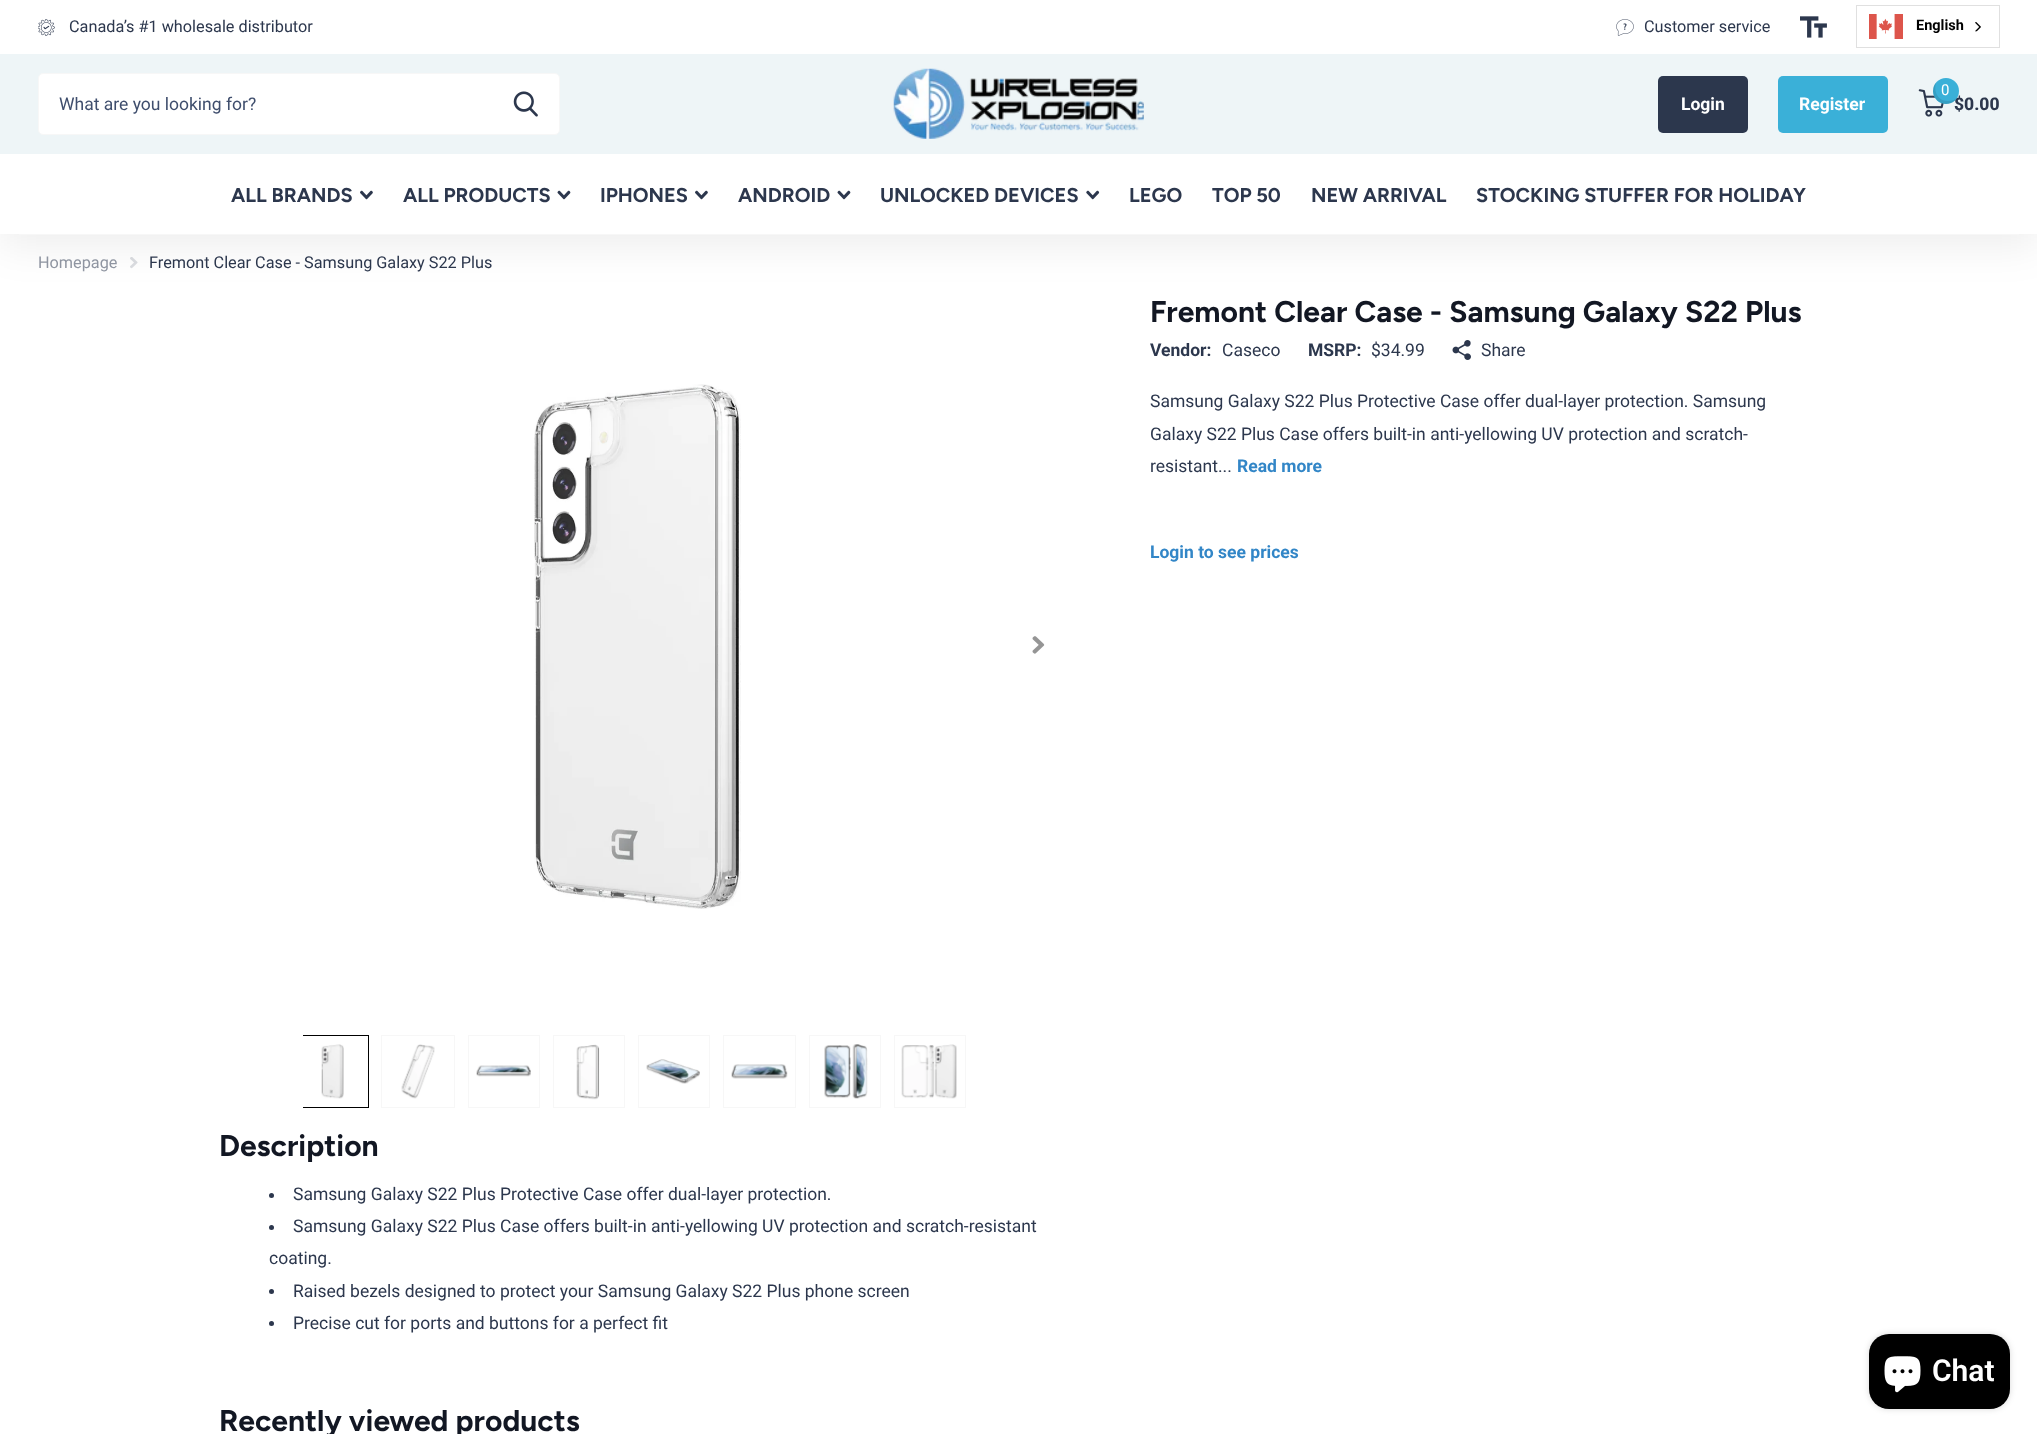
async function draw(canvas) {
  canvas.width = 2037
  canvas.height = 1434
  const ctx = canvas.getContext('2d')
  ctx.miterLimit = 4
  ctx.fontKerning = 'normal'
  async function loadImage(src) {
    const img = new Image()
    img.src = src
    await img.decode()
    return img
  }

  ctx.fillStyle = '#fff'
  ctx.fillRect(0, 0, 2037, 1434)
  ctx.drawImage(await loadImage('image11.png'), 130, 257, 8, 12)
  ctx.fillStyle = '#00000012'
  ctx.filter = 'blur(20px)'
  ctx.beginPath()
  ctx.rect(0, 11, 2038, 235)
  ctx.fill()
  ctx.filter = 'none'
  ctx.fillStyle = '#eef5f7'
  ctx.fillRect(0, 54, 2037, 100)
  ctx.fillStyle = '#f7f7f7'
  ctx.fillRect(19, 234, 2000, 1)
  ctx.fillStyle = '#fff'
  ctx.fillRect(0, 0, 2037, 54)
  ctx.drawImage(await loadImage('image0.png'), 38, 19, 17, 17)
  ctx.font = '16.25px Roboto'
  ctx.fillStyle = '#2c374d'
  ctx.fillText('Canada’s #1 wholesale distributor', 69, 32)
  ctx.drawImage(await loadImage('image1.png'), 1616, 19, 18, 17)
  ctx.fillText('Customer service', 1644, 32)
  ctx.drawImage(await loadImage('image2.png'), 1800, 16, 27, 22)
  ctx.strokeStyle = '#e0e0e0'
  ctx.strokeRect(1856.5, 5.5, 143, 42)
  ctx.drawImage(await loadImage('image3.png'), 1869, 14, 34, 25)
  ctx.font = 'bold 14.5px Roboto'
  ctx.fillStyle = '#000'
  ctx.fillText('English', 1916, 30)
  ctx.drawImage(await loadImage('image4.png'), 1975, 22, 6, 10)
  ctx.fillStyle = '#fff'
  ctx.beginPath()
  ctx.roundRect(38.5, 73.5, 521, 61, 4.5)
  ctx.fill()
  ctx.strokeStyle = '#f7f7f7'
  ctx.stroke()
  ctx.font = '17.5px Roboto'
  ctx.fillStyle = '#3f4e6d'
  ctx.fillText('What are you looking for?', 59, 110)
  ctx.drawImage(await loadImage('image5.png'), 513, 91, 25, 26)
  ctx.drawImage(await loadImage('image6.png'), 893, 68, 251, 71)
  ctx.fillStyle = '#2c374d'
  ctx.beginPath()
  ctx.roundRect(1658, 76, 90, 57, 5)
  ctx.fill()
  ctx.font = 'bold 17.5px Roboto'
  ctx.fillStyle = '#fff'
  ctx.fillText('Login', 1681, 110)
  ctx.fillStyle = '#3ab0d8'
  ctx.beginPath()
  ctx.roundRect(1778, 76, 110, 57, 5)
  ctx.fill()
  ctx.fillStyle = '#fff'
  ctx.fillText('Register', 1799, 110)
  ctx.drawImage(await loadImage('image7.png'), 1918, 89, 26, 28)
  ctx.font = '800 17.5px Roboto'
  ctx.fillStyle = '#2c374d'
  ctx.fillText('$0.00', 1954, 110)
  ctx.fillStyle = '#3ab0d8'
  ctx.beginPath()
  ctx.arc(1946, 91, 13, 0, 2 * Math.PI)
  ctx.fill()
  ctx.fillStyle = '#0000001a'
  ctx.beginPath()
  ctx.moveTo(1957.5, 97)
  ctx.bezierCurveTo(1955.5, 99.5, 1952.5, 101, 1948, 101)
  ctx.bezierCurveTo(1937, 101, 1933, 90, 1936.5, 82)
  ctx.bezierCurveTo(1927, 92, 1938.5, 108.5, 1951.5, 103)
  ctx.bezierCurveTo(1954, 101.5, 1956, 99.5, 1957.5, 97)
  ctx.closePath()
  ctx.fill()
  ctx.font = '15px Roboto'
  ctx.fillStyle = '#fff'
  ctx.fillText('0', 1941, 95)
  ctx.fillRect(0, 154, 2037, 80)
  ctx.font = 'bold 20px Figtree'
  ctx.fillStyle = '#2c374d'
  ctx.fillText('ALL BRANDS', 231, 202)
  ctx.drawImage(await loadImage('image8.png'), 360, 190, 13, 10)
  ctx.fillText('ALL PRODUCTS', 403, 202)
  ctx.drawImage(await loadImage('image9.png'), 557, 190, 14, 10)
  ctx.fillText('IPHONES', 600, 202)
  ctx.drawImage(await loadImage('image8.png'), 695, 190, 13, 10)
  ctx.fillText('ANDROID', 738, 202)
  ctx.drawImage(await loadImage('image9.png'), 837, 190, 14, 10)
  ctx.fillText('UNLOCKED DEVICES', 880, 202)
  ctx.drawImage(await loadImage('image10.png'), 1086, 190, 14, 10)
  ctx.fillText('LEGO', 1129, 202)
  ctx.fillText('TOP 50', 1212, 202)
  ctx.fillText('NEW ARRIVAL', 1311, 202)
  ctx.fillText('STOCKING STUFFER FOR HOLIDAY', 1476, 202)
  ctx.font = '16.25px Roboto'
  ctx.fillStyle = '#8f95a1'
  ctx.fillText('Homepage', 38, 268)
  ctx.fillStyle = '#2c374d'
  ctx.fillText('Fremont Clear Case - Samsung Galaxy S22 Plus', 149, 268)
  ctx.font = 'bold 30px Figtree'
  ctx.fillStyle = '#121723'
  ctx.fillText('Fremont Clear Case - Samsung Galaxy S22 Plus', 1150, 322)
  ctx.font = 'bold 17.5px Roboto'
  ctx.fillStyle = '#2c374d'
  ctx.fillText('Vendor:', 1150, 356)
  ctx.font = '17.5px Roboto'
  ctx.fillText('Caseco', 1222, 356)
  ctx.font = 'bold 17.5px Roboto'
  ctx.fillText('MSRP:', 1308, 356)
  ctx.font = '17.5px Roboto'
  ctx.fillText('$34.99', 1371, 356)
  ctx.drawImage(await loadImage('image12.png'), 1452, 340, 19, 20)
  ctx.fillText('Share', 1481, 356)
  ctx.fillText('Samsung Galaxy S22 Plus Protective Case offer dual-layer protection. Samsung', 1150, 407)
  ctx.fillText('Galaxy S22 Plus Case offers built-in anti-yellowing UV protection and scratch-', 1150, 440)
  ctx.fillText('resistant...', 1150, 472)
  ctx.font = 'bold 17.5px Roboto'
  ctx.fillStyle = '#3286c7'
  ctx.fillText('Read more', 1237, 472)
  ctx.fillText('Login to see prices', 1150, 558)
  ctx.drawImage(await loadImage('image13.png'), 534, 384, 207, 525)
  ctx.drawImage(await loadImage('image14.png'), 1032, 636, 13, 18)
  ctx.save()
  ctx.beginPath()
  ctx.rect(303, 1035, 670, 73)
  ctx.clip()
  ctx.strokeStyle = '#000'
  ctx.strokeRect(296.5, 1035.5, 72, 72)
  ctx.restore()
  ctx.drawImage(await loadImage('image15.png'), 321, 1044, 23, 55)
  ctx.strokeRect(381.5, 1035.5, 73, 72)
  ctx.drawImage(await loadImage('image16.png'), 401, 1044, 34, 55)
  ctx.strokeRect(468.5, 1035.5, 71, 72)
  ctx.drawImage(await loadImage('image17.png'), 476, 1065, 55, 12)
  ctx.strokeRect(553.5, 1035.5, 71, 72)
  ctx.drawImage(await loadImage('image18.png'), 576, 1044, 24, 56)
  ctx.strokeRect(638.5, 1035.5, 71, 72)
  ctx.drawImage(await loadImage('image19.png'), 646, 1059, 54, 25)
  ctx.strokeRect(723.5, 1035.5, 72, 72)
  ctx.drawImage(await loadImage('image20.png'), 731, 1064, 57, 15)
  ctx.strokeRect(809.5, 1035.5, 71, 72)
  ctx.drawImage(await loadImage('image21.png'), 824, 1044, 44, 55)
  ctx.strokeRect(894.5, 1035.5, 71, 72)
  ctx.drawImage(await loadImage('image22.png'), 901, 1044, 56, 55)
  ctx.font = 'bold 30px Figtree'
  ctx.fillStyle = '#121723'
  ctx.fillText('Description', 219, 1156)
  ctx.fillStyle = '#2c374d'
  ctx.beginPath()
  ctx.arc(271.5, 1195.5, 2.5, 0, 2 * Math.PI)
  ctx.fill()
  ctx.font = '17.5px Roboto'
  ctx.fillText('Samsung Galaxy S22 Plus Protective Case offer dual-layer protection.', 293, 1200)
  ctx.beginPath()
  ctx.arc(271.5, 1227.5, 2.5, 0, 2 * Math.PI)
  ctx.fill()
  ctx.fillText('Samsung Galaxy S22 Plus Case offers built-in anti-yellowing UV protection and scratch-resistant', 293, 1232)
  ctx.fillText('coating.', 269, 1264)
  ctx.beginPath()
  ctx.arc(271.5, 1291.5, 2.5, 0, 2 * Math.PI)
  ctx.fill()
  ctx.fillText('Raised bezels designed to protect your Samsung Galaxy S22 Plus phone screen', 293, 1297)
  ctx.beginPath()
  ctx.arc(271.5, 1323.5, 2.5, 0, 2 * Math.PI)
  ctx.fill()
  ctx.fillText('Precise cut for ports and buttons for a perfect fit', 293, 1329)
  ctx.font = 'bold 30px Figtree'
  ctx.fillStyle = '#121723'
  ctx.fillText('Recently viewed products', 219, 1431)
  ctx.fillStyle = '#00000026'
  ctx.filter = 'blur(3px)'
  ctx.beginPath()
  ctx.roundRect(1869, 1334, 141, 75, 20)
  ctx.fill()
  ctx.filter = 'none'
  ctx.fillStyle = '#000'
  ctx.beginPath()
  ctx.roundRect(1869, 1334, 141, 75, 20)
  ctx.fill()
  ctx.drawImage(await loadImage('image23.png'), 1884, 1356, 37, 37)
  ctx.font = '600 30px Roboto'
  ctx.fillStyle = '#fff'
  ctx.fillText('Chat', 1932, 1381)
}

draw(document.querySelector('canvas'))
